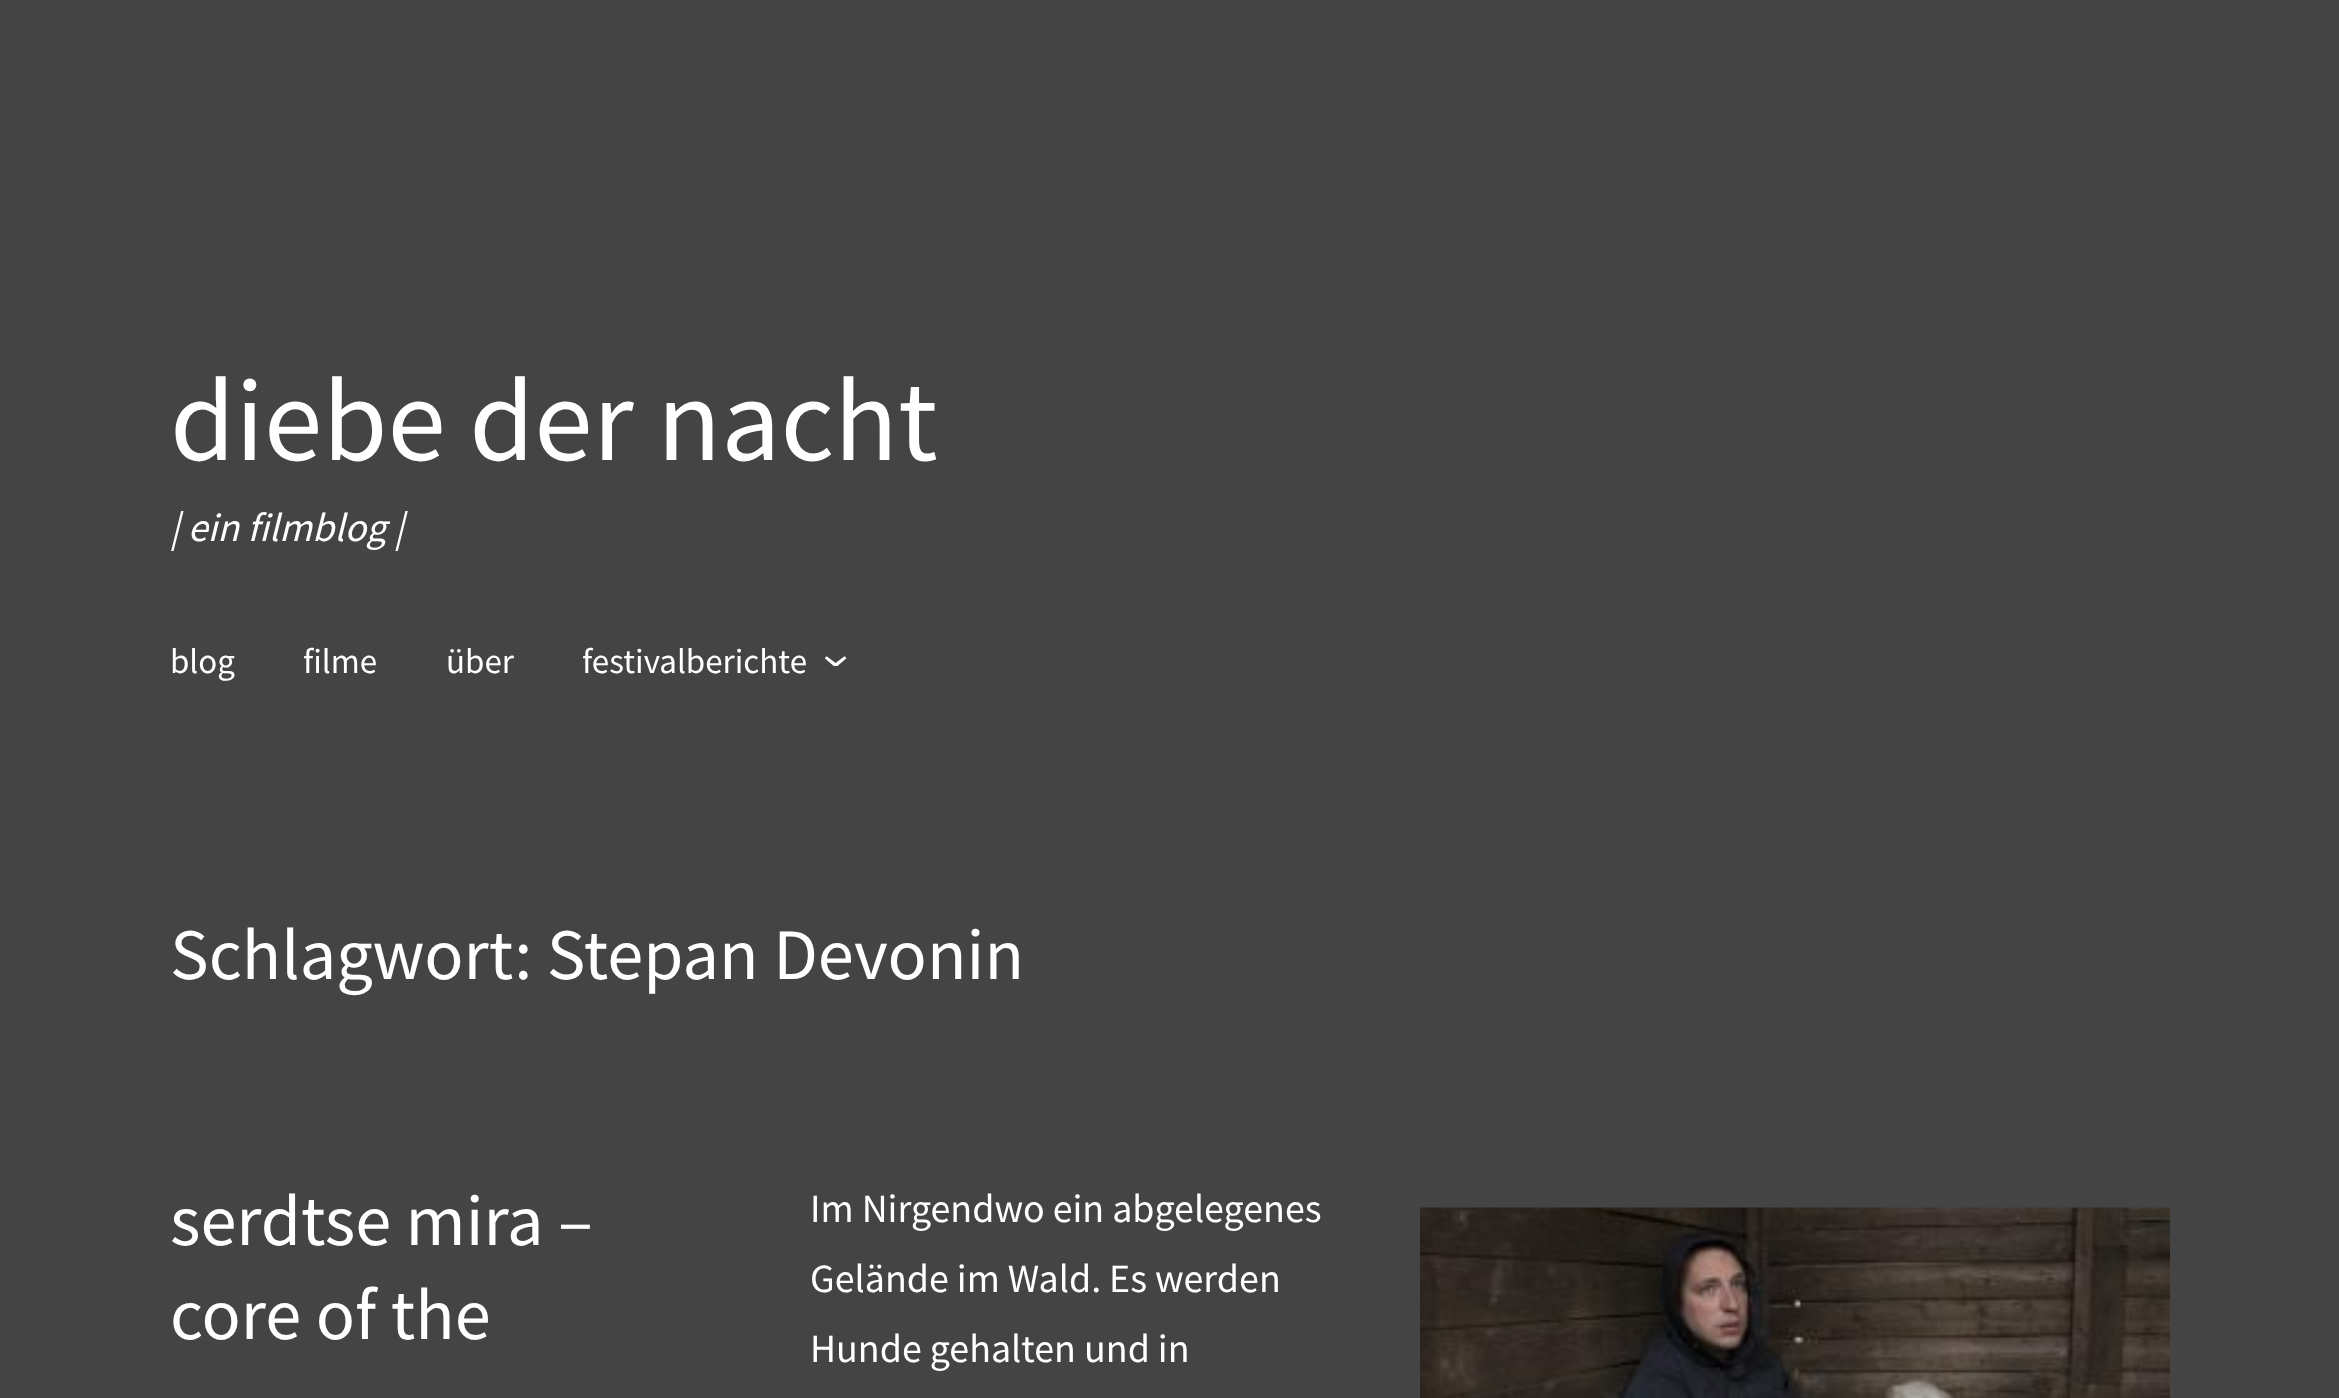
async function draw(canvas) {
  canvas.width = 2339
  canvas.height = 1398
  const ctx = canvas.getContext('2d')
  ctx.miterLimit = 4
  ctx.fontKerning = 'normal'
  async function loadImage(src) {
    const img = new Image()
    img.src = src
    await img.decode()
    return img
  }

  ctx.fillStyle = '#444'
  ctx.fillRect(0, 0, 2339, 1398)
  ctx.font = '117.5px Source Sans Pro'
  ctx.fillStyle = '#fff'
  ctx.fillText('diebe der nacht', 170, 460)
  ctx.font = 'italic 40px Source Sans Pro'
  ctx.fillText('| ein filmblog |', 170, 541)
  ctx.font = '35px Source Sans Pro'
  ctx.fillText('blog', 170, 673)
  ctx.fillText('filme', 303, 673)
  ctx.fillText('über', 446, 673)
  ctx.fillText('festivalberichte', 582, 673)
  ctx.font = '58px Source Sans Pro'
  ctx.save()
  ctx.translate(821, 653)
  ctx.rotate(90 * Math.PI / 180)
  ctx.fillText('›', 0, 0)
  ctx.restore()
  ctx.font = '72.5px Source Sans Pro'
  ctx.fillText('Schlagwort: Stepan Devonin', 170, 979)
  ctx.fillText('serdtse mira –', 170, 1245)
  ctx.fillText('core of the', 170, 1339)
  ctx.font = '40px Source Sans Pro'
  ctx.fillText('Im Nirgendwo ein abgelegenes', 810, 1222)
  ctx.drawImage(await loadImage('image0.png'), 1420, 1207, 750, 191)
  ctx.fillText('Gelände im Wald. Es werden', 810, 1292)
  ctx.fillText('Hunde gehalten und in', 810, 1362)
}

draw(document.querySelector('canvas'))
